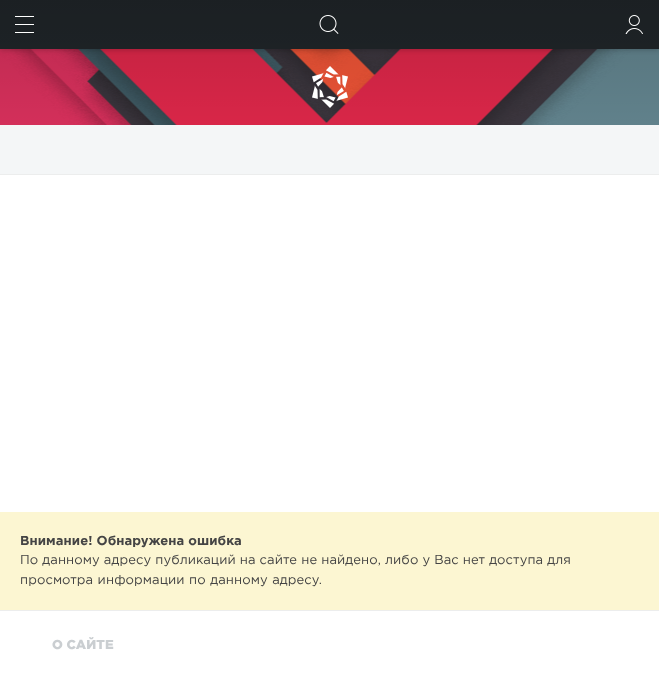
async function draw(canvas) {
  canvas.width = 659
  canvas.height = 674
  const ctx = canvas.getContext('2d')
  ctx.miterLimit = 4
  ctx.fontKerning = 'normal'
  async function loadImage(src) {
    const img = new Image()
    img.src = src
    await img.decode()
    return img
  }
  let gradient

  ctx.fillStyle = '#fff'
  ctx.fillRect(0, 0, 659, 674)
  ctx.drawImage(await loadImage('image0.png'), 0, 49, 659, 76)
  ctx.fillStyle = '#00000033'
  ctx.filter = 'blur(2.5px)'
  ctx.beginPath()
  ctx.rect(0, 1, 659, 49)
  ctx.fill()
  ctx.filter = 'none'
  ctx.fillStyle = '#22282c'
  ctx.fillRect(0, 0, 659, 49)
  gradient = ctx.createLinearGradient(330, 0, 330, 230)
  gradient.addColorStop(0, '#00000033')
  gradient.addColorStop(1, '#00000000')
  ctx.fillStyle = gradient
  ctx.fillRect(0, 0, 659, 125)
  ctx.fillStyle = '#fff'
  ctx.fillRect(15, 16, 19, 1)
  ctx.fillRect(15, 24, 19, 1)
  ctx.fillRect(15, 32, 19, 1)
  ctx.drawImage(await loadImage('image1.png'), 319, 15, 20, 19)
  ctx.drawImage(await loadImage('image2.png'), 625, 15, 18, 19)
  ctx.drawImage(await loadImage('image3.png'), 312, 66, 36, 42)
  ctx.fillStyle = '#f4f6f7'
  ctx.fillRect(0, 125, 659, 49)
  ctx.fillStyle = '#eceded'
  ctx.fillRect(0, 174, 659, 1)
  ctx.fillStyle = '#fcf6d2'
  ctx.fillRect(0, 512, 659, 98)
  ctx.letterSpacing = '0.1px'
  ctx.font = 'bold 13px Gotham'
  ctx.fillStyle = '#444'
  ctx.fillText('Внимание! Обнаружена ошибка', 20, 545)
  ctx.font = '13px Gotham'
  ctx.fillText('По данному адресу публикаций на сайте не найдено, либо у Вас нет доступа для', 20, 564)
  ctx.wordSpacing = '0.5px'
  ctx.fillText('просмотра информации по данному адресу.', 20, 584)
  ctx.fillStyle = '#eceded'
  ctx.fillRect(0, 610, 659, 1)
  ctx.wordSpacing = '0px'
  ctx.font = '900 13px Gotham'
  ctx.fillStyle = '#caced1'
  ctx.fillText('О САЙТЕ', 52, 649)
}

draw(document.querySelector('canvas'))
